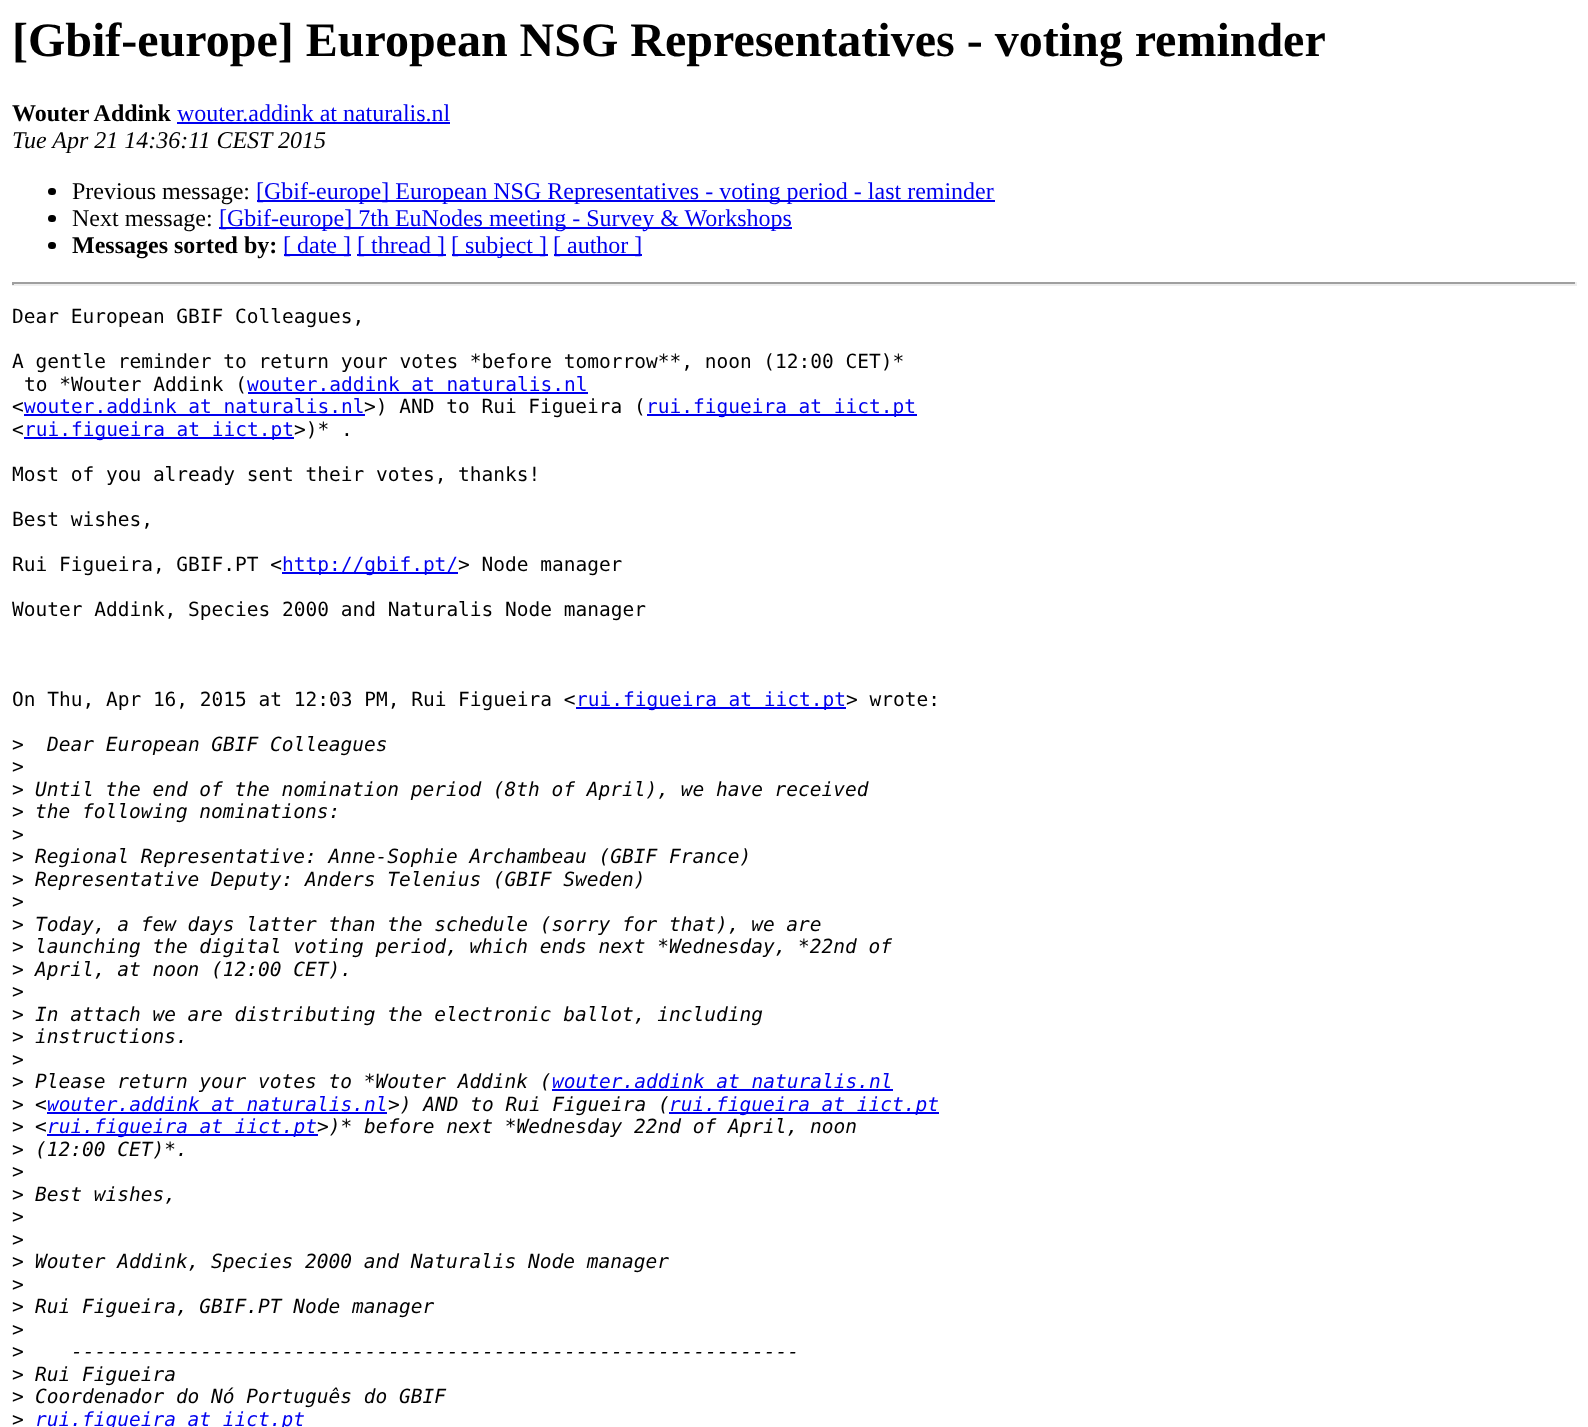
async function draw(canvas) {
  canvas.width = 1588
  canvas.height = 1427
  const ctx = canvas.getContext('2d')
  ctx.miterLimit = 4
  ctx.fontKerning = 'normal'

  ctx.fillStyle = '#fff'
  ctx.fillRect(0, 0, 1588, 1427)
  ctx.font = 'bold 48px Liberation Serif'
  ctx.fillStyle = '#000'
  ctx.fillText('[Gbif-europe] European NSG Representatives - voting reminder', 12, 56)
  ctx.font = 'bold 24px Liberation Serif'
  ctx.fillText('Wouter Addink', 12, 121)
  ctx.font = '24px Liberation Serif'
  ctx.fillStyle = '#00e'
  ctx.fillText('wouter.addink at naturalis.nl', 177, 121)
  ctx.fillRect(177, 122, 273, 2)
  ctx.font = 'italic 24px Liberation Serif'
  ctx.fillStyle = '#000'
  ctx.fillText('Tue Apr 21 14:36:11 CEST 2015', 12, 148)
  ctx.beginPath()
  ctx.roundRect(48, 188, 8, 7, 3.5)
  ctx.fill()
  ctx.font = '24px Liberation Serif'
  ctx.fillText('Previous message:', 72, 199)
  ctx.fillStyle = '#00e'
  ctx.fillRect(257, 200, 738, 2)
  ctx.fillText('[Gbif-europe] European NSG Representatives - voting period - last reminder', 256, 199)
  ctx.fillStyle = '#000'
  ctx.beginPath()
  ctx.roundRect(48, 215, 8, 7, 3.5)
  ctx.fill()
  ctx.fillText('Next message:', 72, 226)
  ctx.fillStyle = '#00e'
  ctx.fillRect(219, 227, 573, 2)
  ctx.fillText('[Gbif-europe] 7th EuNodes meeting - Survey & Workshops', 219, 226)
  ctx.fillStyle = '#000'
  ctx.beginPath()
  ctx.roundRect(48, 242, 8, 7, 3.5)
  ctx.fill()
  ctx.font = 'bold 24px Liberation Serif'
  ctx.fillText('Messages sorted by:', 72, 253)
  ctx.fillStyle = '#00e'
  ctx.fillRect(284, 254, 67, 2)
  ctx.font = '24px Liberation Serif'
  ctx.fillText('[ date ]', 283, 253)
  ctx.fillRect(357, 254, 89, 2)
  ctx.fillText('[ thread ]', 357, 253)
  ctx.fillRect(452, 254, 96, 2)
  ctx.fillText('[ subject ]', 451, 253)
  ctx.fillRect(554, 254, 88, 2)
  ctx.fillText('[ author ]', 553, 253)
  ctx.fillStyle = '#9f9f9f'
  ctx.fillRect(12, 282, 1565, 2)
  ctx.fillStyle = '#eee'
  ctx.fillRect(1575, 282, 2, 3)
  ctx.fillRect(12, 284, 1565, 2)
  ctx.fillStyle = '#9f9f9f'
  ctx.fillRect(12, 282, 2, 3)
  ctx.font = '19.5px DejaVu Sans Mono'
  ctx.fillStyle = '#000'
  ctx.fillText('Dear European GBIF Colleagues,', 12, 323)
  ctx.fillText('A gentle reminder to return your votes *before tomorrow**, noon (12:00 CET)*', 12, 368)
  ctx.fillText('to *Wouter Addink (', 24, 391)
  ctx.fillStyle = '#00e'
  ctx.fillText('wouter.addink at naturalis.nl', 247, 391)
  ctx.fillRect(248, 392, 340, 2)
  ctx.fillStyle = '#000'
  ctx.fillText('<', 12, 413)
  ctx.fillStyle = '#00e'
  ctx.fillText('wouter.addink at naturalis.nl', 24, 413)
  ctx.fillRect(24, 414, 341, 2)
  ctx.fillStyle = '#000'
  ctx.fillText('>) AND to Rui Figueira (', 364, 413)
  ctx.fillStyle = '#00e'
  ctx.fillRect(647, 414, 270, 2)
  ctx.fillText('rui.figueira at iict.pt', 646, 413)
  ctx.fillStyle = '#000'
  ctx.fillText('<', 12, 436)
  ctx.fillStyle = '#00e'
  ctx.fillRect(24, 437, 270, 2)
  ctx.fillText('rui.figueira at iict.pt', 24, 436)
  ctx.fillStyle = '#000'
  ctx.fillText('>)* .', 294, 436)
  ctx.fillText('Most of you already sent their votes, thanks!', 12, 481)
  ctx.fillText('Best wishes,', 12, 526)
  ctx.fillText('Rui Figueira, GBIF.PT <', 12, 571)
  ctx.fillStyle = '#00e'
  ctx.fillRect(282, 572, 176, 2)
  ctx.fillText('http://gbif.pt/', 282, 571)
  ctx.fillStyle = '#000'
  ctx.fillText('> Node manager', 458, 571)
  ctx.fillText('Wouter Addink, Species 2000 and Naturalis Node manager', 12, 616)
  ctx.fillText('On Thu, Apr 16, 2015 at 12:03 PM, Rui Figueira <', 12, 706)
  ctx.fillStyle = '#00e'
  ctx.fillRect(576, 707, 270, 2)
  ctx.fillText('rui.figueira at iict.pt', 576, 706)
  ctx.fillStyle = '#000'
  ctx.fillText('> wrote:', 846, 706)
  ctx.fillText('>', 12, 751)
  ctx.font = 'italic 19.5px DejaVu Sans Mono'
  ctx.fillText('Dear European GBIF Colleagues', 47, 751)
  ctx.font = '19.5px DejaVu Sans Mono'
  ctx.fillText('>', 12, 773)
  ctx.fillText('>', 12, 796)
  ctx.font = 'italic 19.5px DejaVu Sans Mono'
  ctx.fillText('Until the end of the nomination period (8th of April), we have received', 35, 796)
  ctx.font = '19.5px DejaVu Sans Mono'
  ctx.fillText('>', 12, 818)
  ctx.font = 'italic 19.5px DejaVu Sans Mono'
  ctx.fillText('the following nominations:', 35, 818)
  ctx.font = '19.5px DejaVu Sans Mono'
  ctx.fillText('>', 12, 841)
  ctx.fillText('>', 12, 863)
  ctx.font = 'italic 19.5px DejaVu Sans Mono'
  ctx.fillText('Regional Representative: Anne-Sophie Archambeau (GBIF France)', 35, 863)
  ctx.font = '19.5px DejaVu Sans Mono'
  ctx.fillText('>', 12, 886)
  ctx.font = 'italic 19.5px DejaVu Sans Mono'
  ctx.fillText('Representative Deputy: Anders Telenius (GBIF Sweden)', 35, 886)
  ctx.font = '19.5px DejaVu Sans Mono'
  ctx.fillText('>', 12, 908)
  ctx.fillText('>', 12, 931)
  ctx.font = 'italic 19.5px DejaVu Sans Mono'
  ctx.fillText('Today, a few days latter than the schedule (sorry for that), we are', 35, 931)
  ctx.font = '19.5px DejaVu Sans Mono'
  ctx.fillText('>', 12, 953)
  ctx.font = 'italic 19.5px DejaVu Sans Mono'
  ctx.fillText('launching the digital voting period, which ends next *Wednesday, *22nd of', 35, 953)
  ctx.font = '19.5px DejaVu Sans Mono'
  ctx.fillText('>', 12, 976)
  ctx.font = 'italic 19.5px DejaVu Sans Mono'
  ctx.fillText('April, at noon (12:00 CET).', 35, 976)
  ctx.font = '19.5px DejaVu Sans Mono'
  ctx.fillText('>', 12, 998)
  ctx.fillText('>', 12, 1021)
  ctx.font = 'italic 19.5px DejaVu Sans Mono'
  ctx.fillText('In attach we are distributing the electronic ballot, including', 35, 1021)
  ctx.font = '19.5px DejaVu Sans Mono'
  ctx.fillText('>', 12, 1043)
  ctx.font = 'italic 19.5px DejaVu Sans Mono'
  ctx.fillText('instructions.', 35, 1043)
  ctx.font = '19.5px DejaVu Sans Mono'
  ctx.fillText('>', 12, 1066)
  ctx.fillText('>', 12, 1088)
  ctx.font = 'italic 19.5px DejaVu Sans Mono'
  ctx.fillText('Please return your votes to *Wouter Addink (', 35, 1088)
  ctx.fillStyle = '#00e'
  ctx.fillRect(552, 1089, 341, 2)
  ctx.fillText('wouter.addink at naturalis.nl', 552, 1088)
  ctx.font = '19.5px DejaVu Sans Mono'
  ctx.fillStyle = '#000'
  ctx.fillText('>', 12, 1111)
  ctx.font = 'italic 19.5px DejaVu Sans Mono'
  ctx.fillText('<', 35, 1111)
  ctx.fillStyle = '#00e'
  ctx.fillText('wouter.addink at naturalis.nl', 47, 1111)
  ctx.fillStyle = '#000'
  ctx.fillText('>) AND to Rui Figueira (', 388, 1111)
  ctx.fillStyle = '#00e'
  ctx.fillRect(47, 1112, 340, 2)
  ctx.fillRect(669, 1112, 270, 2)
  ctx.fillText('rui.figueira at iict.pt', 669, 1111)
  ctx.font = '19.5px DejaVu Sans Mono'
  ctx.fillStyle = '#000'
  ctx.fillText('>', 12, 1133)
  ctx.font = 'italic 19.5px DejaVu Sans Mono'
  ctx.fillText('<', 35, 1133)
  ctx.fillStyle = '#00e'
  ctx.fillRect(47, 1134, 271, 2)
  ctx.fillText('rui.figueira at iict.pt', 47, 1133)
  ctx.fillStyle = '#000'
  ctx.fillText('>)* before next *Wednesday 22nd of April, noon', 317, 1133)
  ctx.font = '19.5px DejaVu Sans Mono'
  ctx.fillText('>', 12, 1156)
  ctx.font = 'italic 19.5px DejaVu Sans Mono'
  ctx.fillText('(12:00 CET)*.', 35, 1156)
  ctx.font = '19.5px DejaVu Sans Mono'
  ctx.fillText('>', 12, 1178)
  ctx.fillText('>', 12, 1201)
  ctx.font = 'italic 19.5px DejaVu Sans Mono'
  ctx.fillText('Best wishes,', 35, 1201)
  ctx.font = '19.5px DejaVu Sans Mono'
  ctx.fillText('>', 12, 1223)
  ctx.fillText('>', 12, 1246)
  ctx.fillText('>', 12, 1268)
  ctx.font = 'italic 19.5px DejaVu Sans Mono'
  ctx.fillText('Wouter Addink, Species 2000 and Naturalis Node manager', 35, 1268)
  ctx.font = '19.5px DejaVu Sans Mono'
  ctx.fillText('>', 12, 1291)
  ctx.fillText('>', 12, 1313)
  ctx.font = 'italic 19.5px DejaVu Sans Mono'
  ctx.fillText('Rui Figueira, GBIF.PT Node manager', 35, 1313)
  ctx.font = '19.5px DejaVu Sans Mono'
  ctx.fillText('>', 12, 1336)
  ctx.fillText('>', 12, 1358)
  ctx.font = 'italic 19.5px DejaVu Sans Mono'
  ctx.fillText('--------------------------------------------------------------', 71, 1358)
  ctx.font = '19.5px DejaVu Sans Mono'
  ctx.fillText('>', 12, 1381)
  ctx.font = 'italic 19.5px DejaVu Sans Mono'
  ctx.fillText('Rui Figueira', 35, 1381)
  ctx.font = '19.5px DejaVu Sans Mono'
  ctx.fillText('>', 12, 1403)
  ctx.font = 'italic 19.5px DejaVu Sans Mono'
  ctx.fillText('Coordenador do Nó Português do GBIF', 35, 1403)
  ctx.font = '19.5px DejaVu Sans Mono'
  ctx.fillText('>', 12, 1426)
  ctx.font = 'italic 19.5px DejaVu Sans Mono'
  ctx.fillStyle = '#00e'
  ctx.fillText('rui.figueira at iict.pt', 35, 1426)
}

draw(document.querySelector('canvas'))
